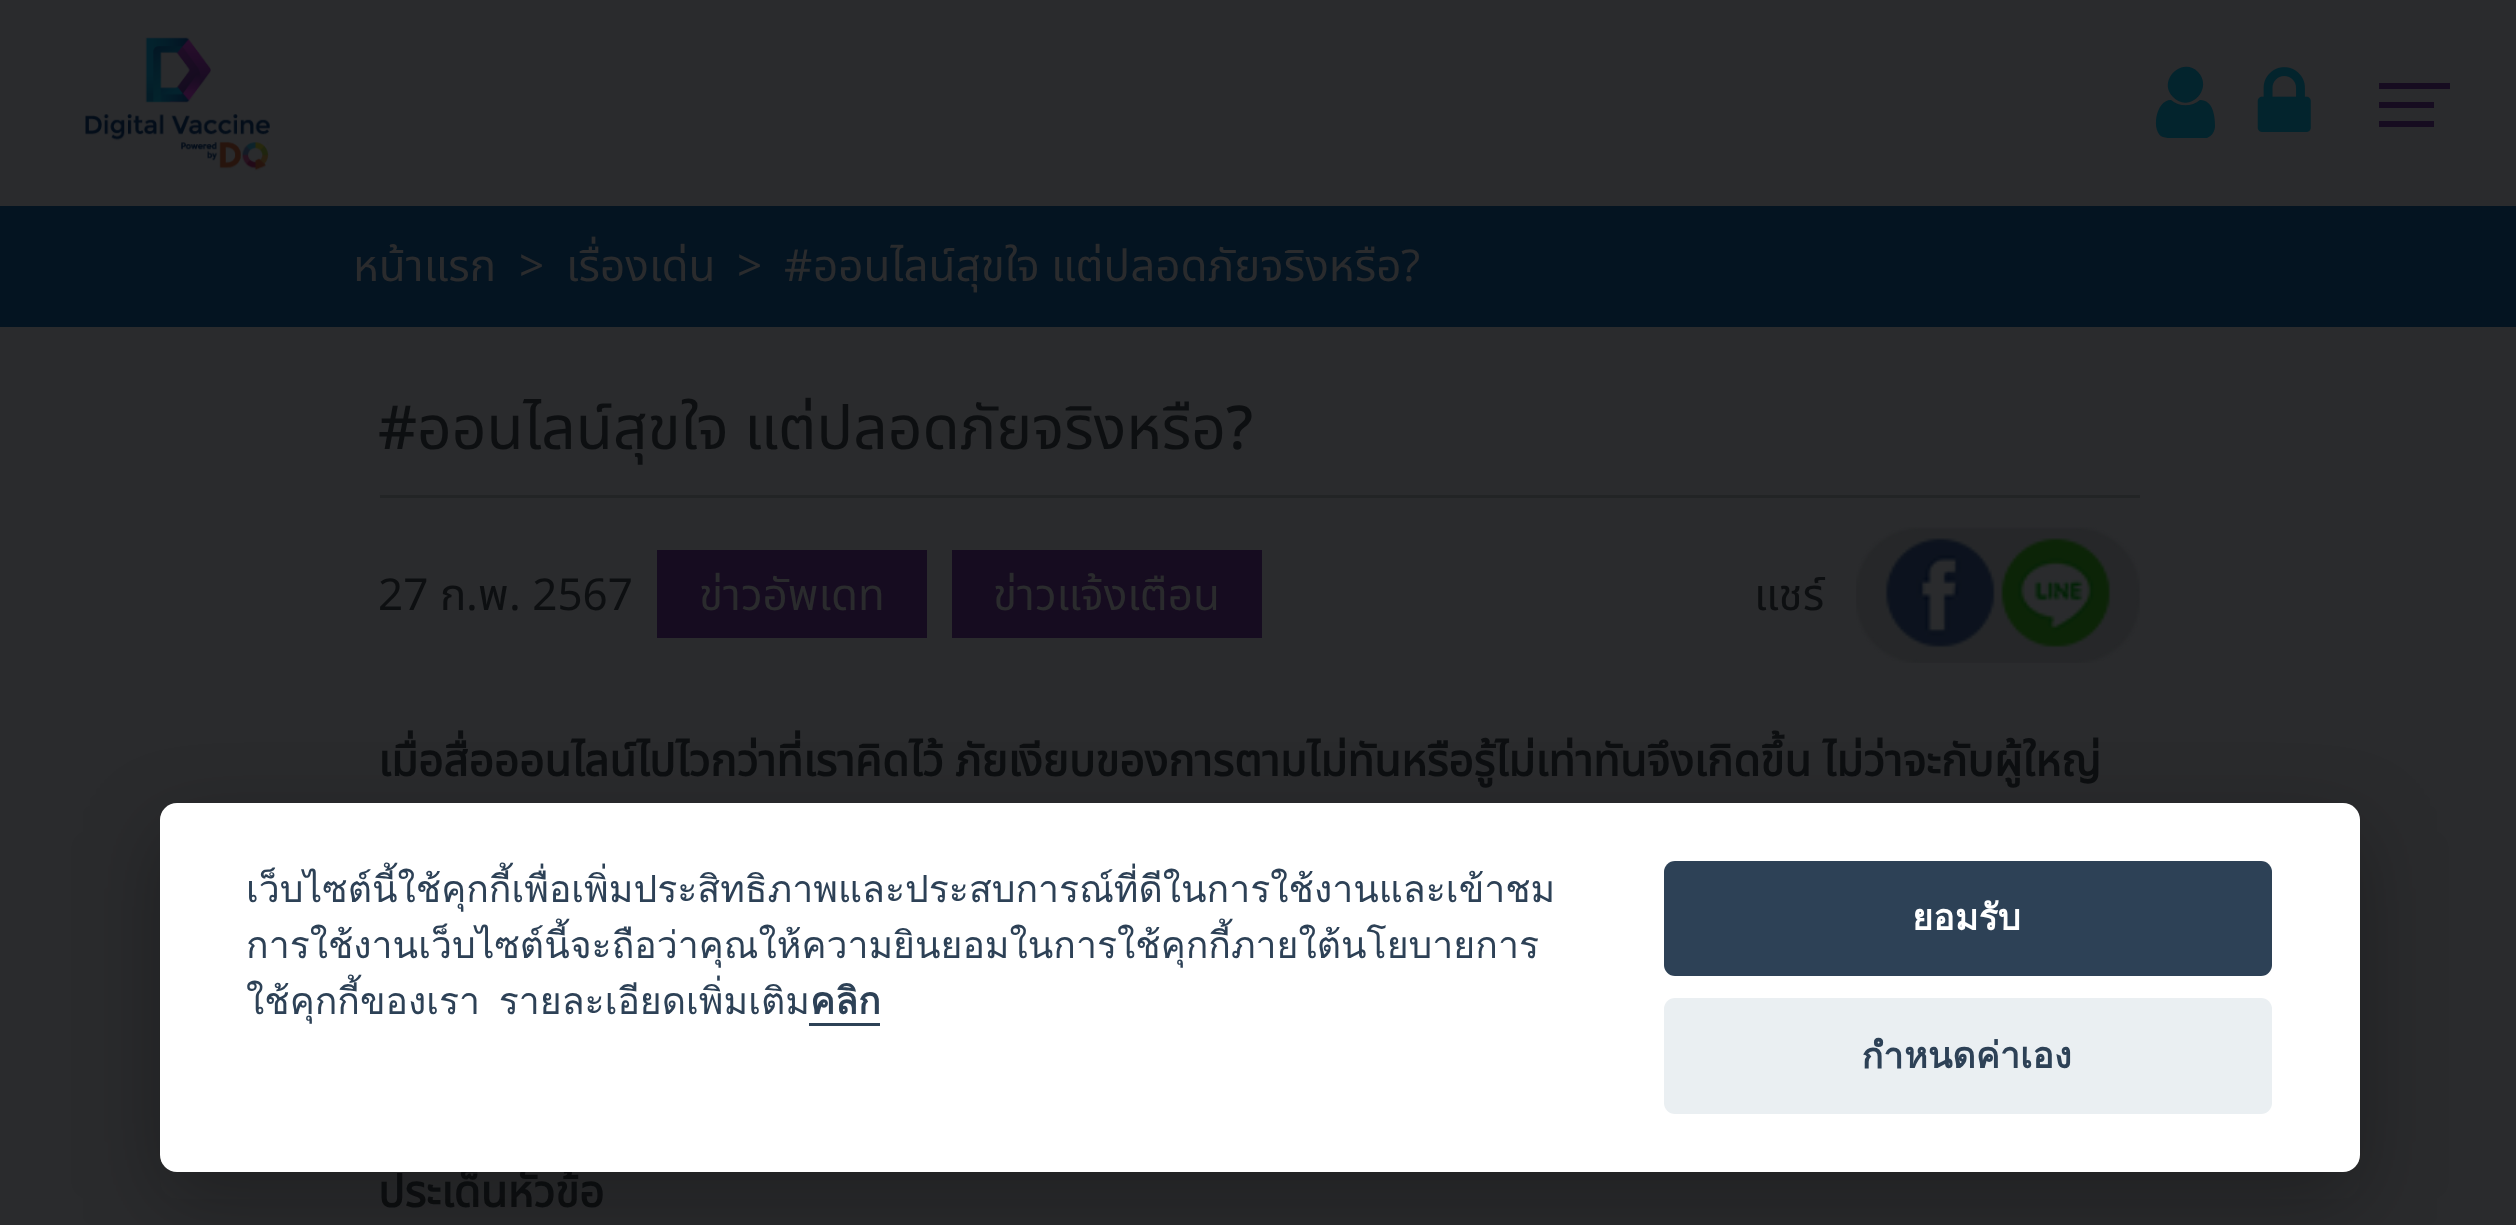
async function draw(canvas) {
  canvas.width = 2516
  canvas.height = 1225
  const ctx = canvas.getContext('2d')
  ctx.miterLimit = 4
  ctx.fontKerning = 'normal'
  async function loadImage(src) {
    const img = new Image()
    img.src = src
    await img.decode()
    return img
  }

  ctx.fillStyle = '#2a2b2d'
  ctx.fillRect(0, 0, 2516, 1225)
  ctx.drawImage(await loadImage('image0.png'), 85, 37, 185, 134)
  ctx.fillStyle = '#03242d'
  ctx.beginPath()
  ctx.moveTo(2215, 126)
  ctx.bezierCurveTo(2215, 131, 2212, 136, 2207, 138)
  ctx.lineTo(2172, 138)
  ctx.bezierCurveTo(2170, 138, 2166, 138, 2163, 137)
  ctx.bezierCurveTo(2151, 133, 2155, 100, 2171, 100)
  ctx.bezierCurveTo(2179, 107, 2192, 107, 2200, 100)
  ctx.bezierCurveTo(2213, 100, 2215, 116, 2215, 126)
  ctx.closePath()
  ctx.moveTo(2198, 72)
  ctx.bezierCurveTo(2214, 89, 2189, 114, 2173, 97)
  ctx.bezierCurveTo(2157, 81, 2182, 56, 2198, 72)
  ctx.closePath()
  ctx.fill()
  ctx.drawImage(await loadImage('image1.png'), 2257, 67, 54, 65)
  ctx.fillStyle = '#160c20'
  ctx.fillRect(2379, 102, 55, 6)
  ctx.fillRect(2379, 83, 71, 6)
  ctx.fillRect(2379, 121, 55, 6)
  ctx.fillStyle = '#041421'
  ctx.fillRect(0, 206, 2516, 121)
  ctx.font = '44px Noto Sans Thai'
  ctx.fillStyle = '#2a2b2d'
  ctx.fillText('หน้าแรก', 353, 281)
  ctx.font = '44px Noto Sans'
  ctx.fillText('>', 519, 281)
  ctx.font = '44px Noto Sans Thai'
  ctx.fillText('เรื่องเด่น', 566, 281)
  ctx.font = '44px Noto Sans'
  ctx.fillText('>', 737, 281)
  ctx.fillText('#', 784, 281)
  ctx.font = '44px Noto Sans Thai'
  ctx.fillText('ออนไลน์สุขใจ แต่ปลอดภัยจริงหรือ', 813, 281)
  ctx.font = '44px Noto Sans'
  ctx.fillText('?', 1401, 281)
  ctx.fillStyle = '#222425'
  ctx.fillRect(380, 495, 1760, 3)
  ctx.font = '500 60.5px Noto Sans'
  ctx.fillStyle = '#0d0f11'
  ctx.fillText('#', 378, 449)
  ctx.font = '60.5px Noto Sans Thai'
  ctx.fillText('ออนไลน์สุขใจ แต่ปลอดภัยจริงหรือ', 417, 449)
  ctx.font = '500 60.5px Noto Sans'
  ctx.fillText('?', 1226, 449)
  ctx.font = '44px Noto Sans'
  ctx.fillText('27', 378, 610)
  ctx.font = '44px Noto Sans Thai'
  ctx.fillText('ก', 440, 610)
  ctx.font = '44px Noto Sans'
  ctx.fillText('.', 466, 610)
  ctx.font = '44px Noto Sans Thai'
  ctx.fillText('พ', 478, 610)
  ctx.font = '44px Noto Sans'
  ctx.fillText('. 2567', 509, 610)
  ctx.fillStyle = '#160c20'
  ctx.fillRect(657, 550, 270, 88)
  ctx.font = '44px Noto Sans Thai'
  ctx.fillStyle = '#2a2b2d'
  ctx.fillText('ข่าวอัพเดท', 699, 610)
  ctx.fillStyle = '#160c20'
  ctx.fillRect(952, 550, 310, 88)
  ctx.fillStyle = '#2a2b2d'
  ctx.fillText('ข่าวแจ้งเตือน', 993, 610)
  ctx.fillStyle = '#0d0f11'
  ctx.fillText('แชร์', 1754, 610)
  ctx.drawImage(await loadImage('image2.png'), 1856, 527, 284, 136)
  ctx.font = 'bold 44px Noto Sans Thai'
  ctx.fillText('เมื่อสื่อออนไลน์ไปไวกว่าที่เราคิดไว้ ภัยเงียบของการตามไม่ทันหรือรู้ไม่เท่าทันจึงเกิดขึ้น ไม่ว่าจะกับผู้ใหญ่', 378, 776)
  ctx.fillText('ประเด็นหัวข้อ', 378, 1207)
  ctx.fillStyle = '#02020347'
  ctx.filter = 'blur(41px)'
  ctx.beginPath()
  ctx.roundRect(160, 831, 2200, 368, 17)
  ctx.fill()
  ctx.filter = 'none'
  ctx.fillStyle = '#fff'
  ctx.beginPath()
  ctx.roundRect(160, 803, 2200, 369, 17)
  ctx.fill()
  ctx.font = '37.4px Loma'
  ctx.fillStyle = '#2d4156'
  ctx.fillText('เว็บไซต์นี้ใช้คุกกี้เพื่อเพิ่มประสิทธิภาพและประสบการณ์ที่ดีในการใช้งานและเข้าชม', 246, 902)
  ctx.fillText('การใช้งานเว็บไซต์นี้จะถือว่าคุณให้ความยินยอมในการใช้คุกกี้ภายใต้นโยบายการ', 246, 958)
  ctx.wordSpacing = '6px'
  ctx.fillText('ใช้คุกกี้ของเรา รายละเอียดเพิ่มเติม', 246, 1014)
  ctx.wordSpacing = '0px'
  ctx.font = 'bold 37.4px Loma'
  ctx.fillText('คลิก', 810, 1014)
  ctx.fillRect(809, 1023, 71, 3)
  ctx.beginPath()
  ctx.roundRect(1664, 861, 608, 115, 11)
  ctx.fill()
  ctx.font = 'bold 36px Loma'
  ctx.fillStyle = '#fff'
  ctx.fillText('ยอมรับ', 1912, 930)
  ctx.fillStyle = '#eaeff2'
  ctx.beginPath()
  ctx.roundRect(1664, 998, 608, 116, 11)
  ctx.fill()
  ctx.fillStyle = '#2d4156'
  ctx.fillText('กำหนดค่าเอง', 1862, 1068)
}

draw(document.querySelector('canvas'))
